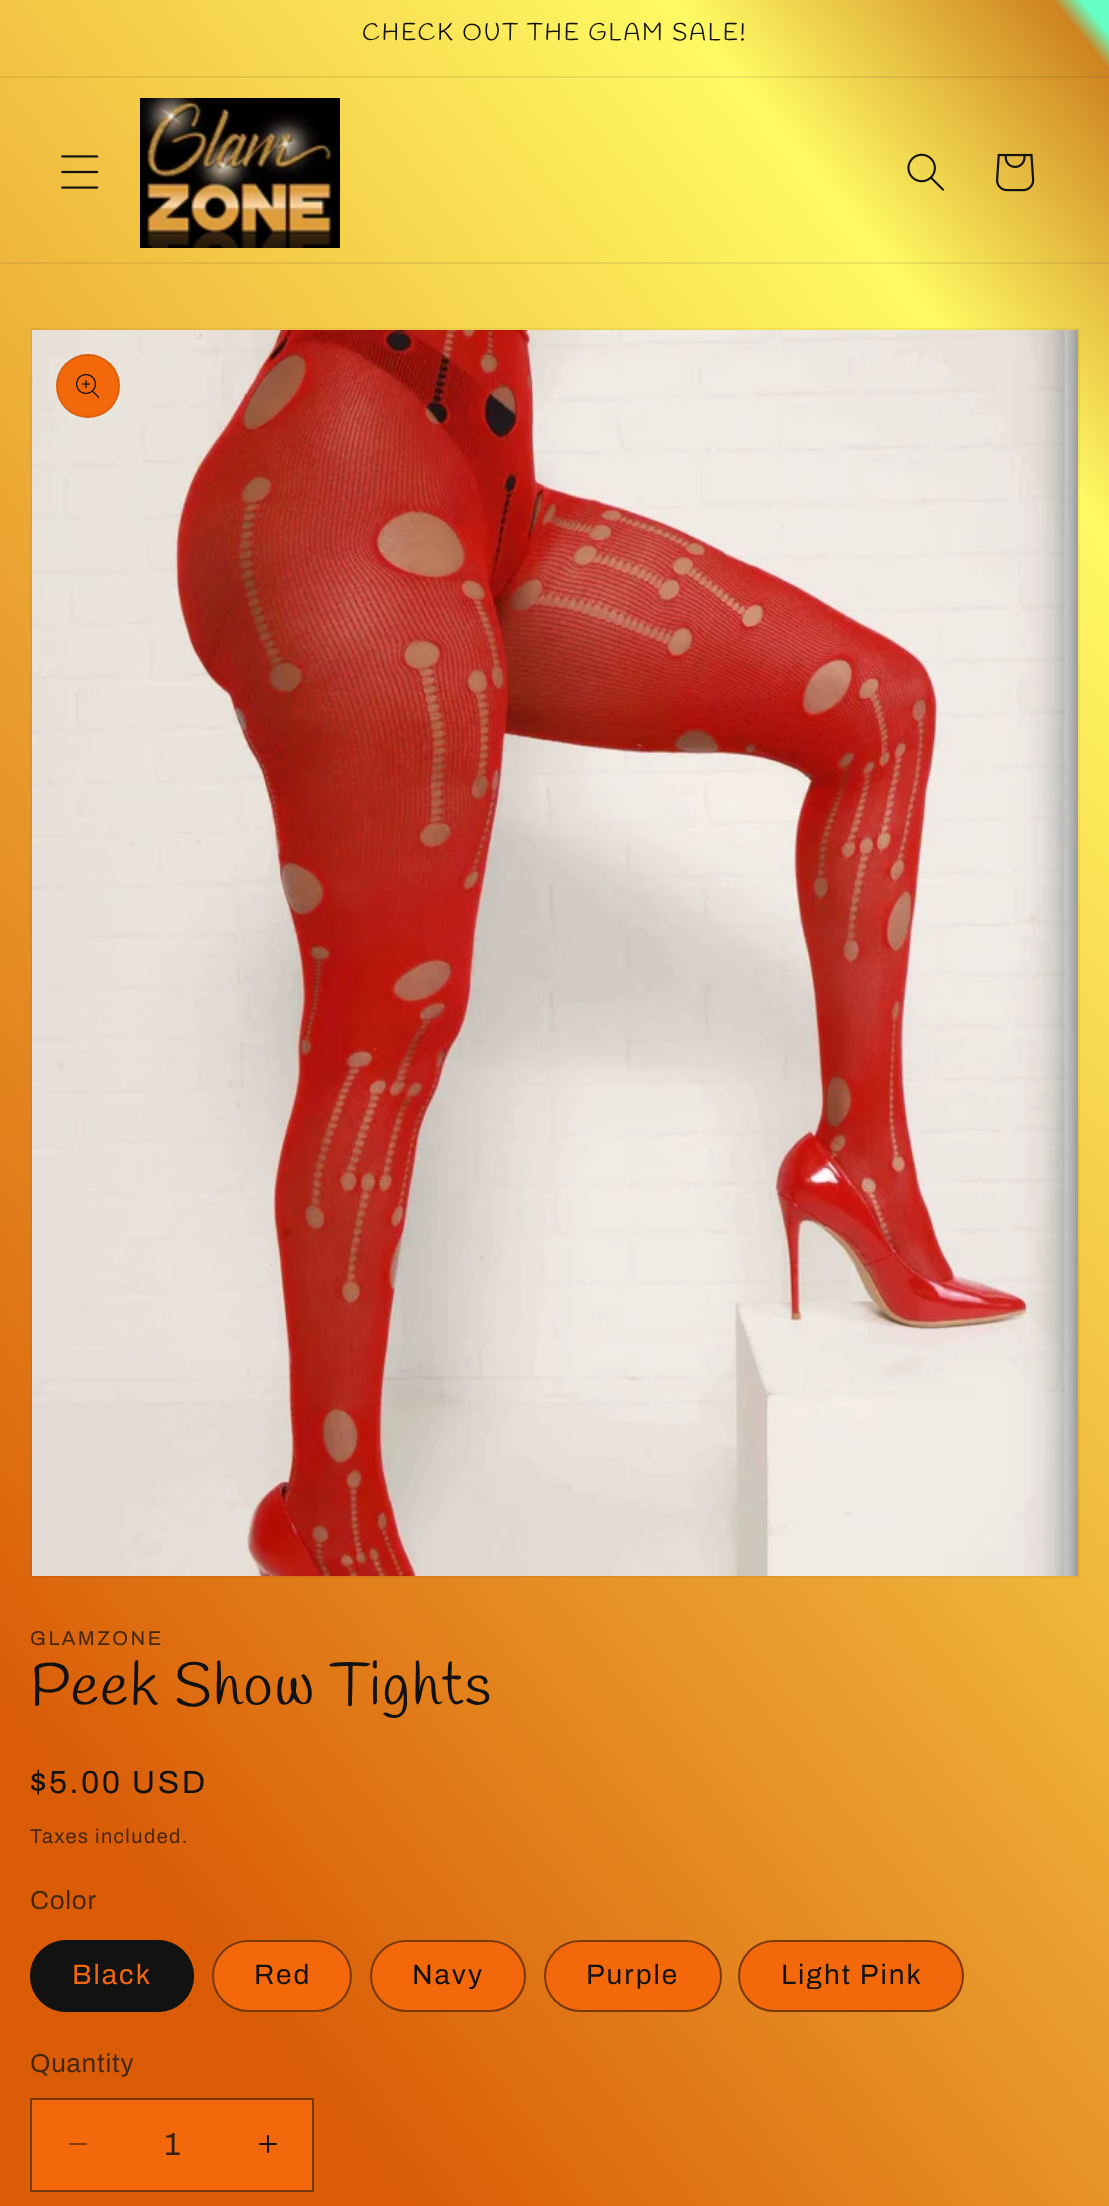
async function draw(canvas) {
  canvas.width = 1109
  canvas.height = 2206
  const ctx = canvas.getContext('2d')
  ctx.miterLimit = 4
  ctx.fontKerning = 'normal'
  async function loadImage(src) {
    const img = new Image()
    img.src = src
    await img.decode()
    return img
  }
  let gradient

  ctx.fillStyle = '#fff'
  ctx.fillRect(0, 0, 1109, 2206)
  gradient = ctx.createLinearGradient(-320, 1811, 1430, 395)
  gradient.addColorStop(0.14, '#da5c07')
  gradient.addColorStop(0.85, '#fffa63')
  gradient.addColorStop(0.98, '#ce8321')
  gradient.addColorStop(0.99, '#65ffc6')
  ctx.fillStyle = gradient
  ctx.fillRect(0, 0, 1109, 76)
  gradient = ctx.createLinearGradient(-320, 1811, 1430, 395)
  gradient.addColorStop(0.14, '#ca5608')
  gradient.addColorStop(0.85, '#ece75d')
  gradient.addColorStop(0.98, '#bf7a20')
  gradient.addColorStop(0.99, '#5eecb8')
  ctx.fillStyle = gradient
  ctx.fillRect(0, 76, 1109, 2)
  ctx.letterSpacing = '2px'
  ctx.font = '24px Handlee'
  ctx.fillStyle = '#121212'
  ctx.fillText('CHECK OUT THE GLAM SALE!', 362, 40)
  gradient = ctx.createLinearGradient(-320, 1811, 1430, 395)
  gradient.addColorStop(0.14, '#da5c07')
  gradient.addColorStop(0.85, '#fffa63')
  gradient.addColorStop(0.98, '#ce8321')
  gradient.addColorStop(0.99, '#65ffc6')
  ctx.fillStyle = gradient
  ctx.fillRect(0, 78, 1109, 184)
  gradient = ctx.createLinearGradient(-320, 1811, 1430, 395)
  gradient.addColorStop(0.14, '#ca5608')
  gradient.addColorStop(0.85, '#ece75d')
  gradient.addColorStop(0.98, '#bf7a20')
  gradient.addColorStop(0.99, '#5eecb8')
  ctx.fillStyle = gradient
  ctx.fillRect(0, 262, 1109, 2)
  ctx.drawImage(await loadImage('image0.png'), 61, 155, 38, 34)
  ctx.drawImage(await loadImage('image1.png'), 140, 98, 200, 150)
  ctx.drawImage(await loadImage('image2.png'), 907, 153, 37, 38)
  ctx.drawImage(await loadImage('image3.png'), 996, 153, 39, 39)
  gradient = ctx.createLinearGradient(-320, 1811, 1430, 395)
  gradient.addColorStop(0.14, '#da5c07')
  gradient.addColorStop(0.85, '#fffa63')
  gradient.addColorStop(0.98, '#ce8321')
  gradient.addColorStop(0.99, '#65ffc6')
  ctx.fillStyle = gradient
  ctx.fillRect(0, 264, 1109, 1942)
  ctx.strokeStyle = '#1212120d'
  ctx.lineWidth = 2
  ctx.strokeRect(31, 329, 1048, 1248)
  ctx.drawImage(await loadImage('image4.png'), 32, 330, 1046, 1246)
  ctx.fillStyle = '#f2680b'
  ctx.beginPath()
  ctx.arc(88, 386, 32, 0, 2 * Math.PI)
  ctx.fill()
  ctx.beginPath()
  ctx.arc(88, 386, 31, 0, 2 * Math.PI)
  ctx.strokeStyle = '#1212121a'
  ctx.stroke()
  ctx.drawImage(await loadImage('image5.png'), 76, 374, 24, 24)
  ctx.letterSpacing = '2.5px'
  ctx.font = '20px Archivo'
  ctx.fillStyle = '#452711'
  ctx.fillText('GLAMZONE', 30, 1645)
  ctx.letterSpacing = '1.25px'
  ctx.font = '60px Handlee'
  ctx.fillStyle = '#121212'
  ctx.fillText('Peek Show Tights', 30, 1705)
  ctx.letterSpacing = '2.5px'
  ctx.font = '32px Archivo'
  ctx.fillText('$5.00 USD', 30, 1793)
  ctx.letterSpacing = '1.4px'
  ctx.font = '20px Archivo'
  ctx.fillStyle = '#452711'
  ctx.fillText('Taxes included.', 30, 1843)
  ctx.letterSpacing = '0.75px'
  ctx.font = '26px Archivo'
  ctx.fillText('Color', 30, 1909)
  ctx.fillStyle = '#121212'
  ctx.beginPath()
  ctx.roundRect(30, 1940, 164, 72, 36)
  ctx.fill()
  ctx.beginPath()
  ctx.roundRect(31, 1941, 162, 70, 35)
  ctx.strokeStyle = '#1212128c'
  ctx.stroke()
  ctx.letterSpacing = '2px'
  ctx.font = '28px Archivo'
  ctx.fillStyle = '#f2680b'
  ctx.fillText('Black', 72, 1984)
  ctx.beginPath()
  ctx.roundRect(212, 1940, 140, 72, 36)
  ctx.fill()
  ctx.beginPath()
  ctx.roundRect(213, 1941, 138, 70, 35)
  ctx.stroke()
  ctx.fillStyle = '#121212'
  ctx.fillText('Red', 254, 1984)
  ctx.fillStyle = '#f2680b'
  ctx.beginPath()
  ctx.roundRect(370, 1940, 156, 72, 36)
  ctx.fill()
  ctx.beginPath()
  ctx.roundRect(371, 1941, 154, 70, 35)
  ctx.stroke()
  ctx.fillStyle = '#121212'
  ctx.fillText('Navy', 412, 1984)
  ctx.fillStyle = '#f2680b'
  ctx.beginPath()
  ctx.roundRect(544, 1940, 178, 72, 36)
  ctx.fill()
  ctx.beginPath()
  ctx.roundRect(545, 1941, 176, 70, 35)
  ctx.stroke()
  ctx.fillStyle = '#121212'
  ctx.fillText('Purple', 586, 1984)
  ctx.fillStyle = '#f2680b'
  ctx.beginPath()
  ctx.roundRect(738, 1940, 226, 72, 36)
  ctx.fill()
  ctx.beginPath()
  ctx.roundRect(739, 1941, 224, 70, 35)
  ctx.stroke()
  ctx.fillStyle = '#121212'
  ctx.fillText('Light Pink', 781, 1984)
  ctx.letterSpacing = '0.75px'
  ctx.font = '26px Archivo'
  ctx.fillStyle = '#452711'
  ctx.fillText('Quantity', 30, 2072)
  ctx.fillStyle = '#f2680b'
  ctx.fillRect(32, 2100, 280, 90)
  ctx.drawImage(await loadImage('image6.png'), 69, 2143, 18, 2)
  ctx.drawImage(await loadImage('image7.png'), 259, 2135, 18, 18)
  ctx.strokeStyle = '#77390f'
  ctx.strokeRect(31, 2099, 282, 92)
  ctx.letterSpacing = '0px'
  ctx.font = '32px Archivo'
  ctx.fillStyle = '#341f11'
  ctx.fillText('1', 164, 2155)
}

draw(document.querySelector('canvas'))
